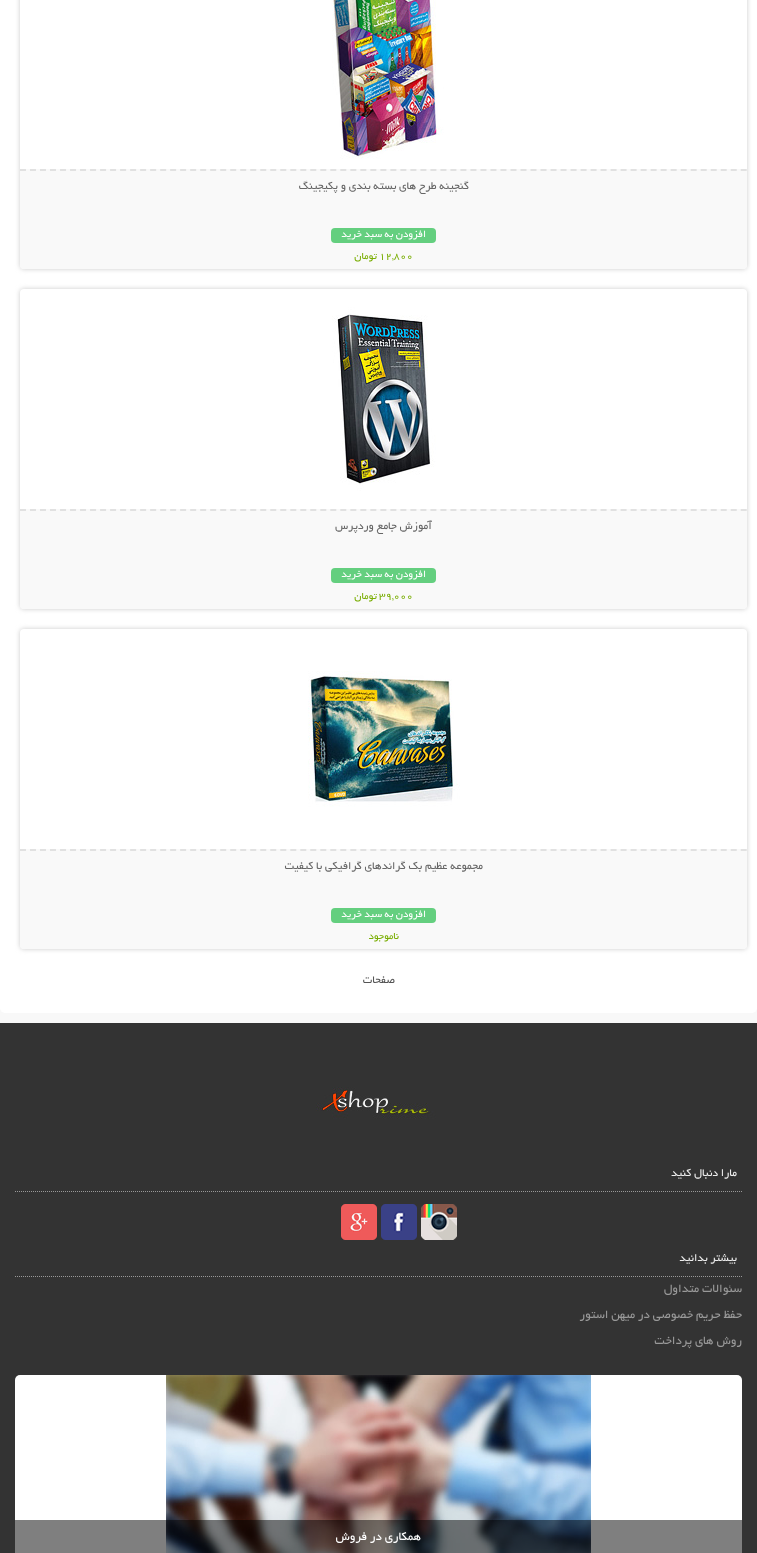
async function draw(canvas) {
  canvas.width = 757
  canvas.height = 1553
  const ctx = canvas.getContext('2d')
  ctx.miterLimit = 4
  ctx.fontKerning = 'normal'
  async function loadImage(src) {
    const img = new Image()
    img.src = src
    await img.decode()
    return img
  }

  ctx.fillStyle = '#f8f8f8'
  ctx.fillRect(0, 0, 757, 1553)
  ctx.fillStyle = '#fff'
  ctx.beginPath()
  ctx.roundRect(0, -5, 757, 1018, 5)
  ctx.fill()
  ctx.fillStyle = '#ccc'
  ctx.filter = 'blur(2.5px)'
  ctx.beginPath()
  ctx.roundRect(20, -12, 727, 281, 4)
  ctx.fill()
  ctx.filter = 'none'
  ctx.fillStyle = '#fff'
  ctx.beginPath()
  ctx.roundRect(20, -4, 727, 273, 4)
  ctx.fill()
  ctx.drawImage(await loadImage('image0.png'), 284, 0, 200, 159)
  ctx.fillStyle = '#f9f9f9'
  ctx.beginPath()
  ctx.roundRect(20, 169, 727, 100, [0, 0, 4, 4])
  ctx.fill()
  ctx.beginPath()
  ctx.moveTo(20, 170)
  ctx.lineTo(747, 170)
  ctx.strokeStyle = '#e1e1e1'
  ctx.lineWidth = 2
  ctx.setLineDash([6, 4.01])
  ctx.stroke()
  ctx.direction = 'rtl'
  ctx.font = '12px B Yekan'
  ctx.fillStyle = '#666'
  ctx.fillText('گنجینه طرح های بسته بندی و پکیجینگ', 469, 189)
  ctx.fillStyle = '#64cf7f'
  ctx.beginPath()
  ctx.roundRect(331, 228, 105, 15, 4)
  ctx.fill()
  ctx.font = '11px B Yekan'
  ctx.fillStyle = '#fff'
  ctx.fillText('افزودن به سبد خرید', 426, 237)
  ctx.direction = 'ltr'
  ctx.fillStyle = '#78ad00'
  ctx.fillText('12,800', 379, 259)
  ctx.direction = 'rtl'
  ctx.fillText('تومان', 377, 259)
  ctx.fillStyle = '#ccc'
  ctx.filter = 'blur(2.5px)'
  ctx.beginPath()
  ctx.roundRect(20, 289, 727, 320, 4)
  ctx.fill()
  ctx.filter = 'none'
  ctx.fillStyle = '#fff'
  ctx.beginPath()
  ctx.roundRect(20, 289, 727, 320, 4)
  ctx.fill()
  ctx.drawImage(await loadImage('image1.png'), 284, 299, 200, 200)
  ctx.fillStyle = '#f9f9f9'
  ctx.beginPath()
  ctx.roundRect(20, 509, 727, 100, [0, 0, 4, 4])
  ctx.fill()
  ctx.beginPath()
  ctx.moveTo(20, 510)
  ctx.lineTo(747, 510)
  ctx.stroke()
  ctx.font = '12px B Yekan'
  ctx.fillStyle = '#666'
  ctx.fillText('آموزش جامع وردپرس', 432, 529)
  ctx.fillStyle = '#64cf7f'
  ctx.beginPath()
  ctx.roundRect(331, 568, 105, 15, 4)
  ctx.fill()
  ctx.font = '11px B Yekan'
  ctx.fillStyle = '#fff'
  ctx.fillText('افزودن به سبد خرید', 426, 577)
  ctx.direction = 'ltr'
  ctx.fillStyle = '#78ad00'
  ctx.fillText('39,000', 379, 599)
  ctx.direction = 'rtl'
  ctx.fillText('تومان', 377, 599)
  ctx.fillStyle = '#ccc'
  ctx.filter = 'blur(2.5px)'
  ctx.beginPath()
  ctx.roundRect(20, 629, 727, 320, 4)
  ctx.fill()
  ctx.filter = 'none'
  ctx.fillStyle = '#fff'
  ctx.beginPath()
  ctx.roundRect(20, 629, 727, 320, 4)
  ctx.fill()
  ctx.drawImage(await loadImage('image2.png'), 284, 639, 200, 200)
  ctx.fillStyle = '#f9f9f9'
  ctx.beginPath()
  ctx.roundRect(20, 849, 727, 100, [0, 0, 4, 4])
  ctx.fill()
  ctx.beginPath()
  ctx.moveTo(20, 850)
  ctx.lineTo(747, 850)
  ctx.stroke()
  ctx.font = '12px B Yekan'
  ctx.fillStyle = '#666'
  ctx.fillText('مجموعه عظیم بک گراندهای گرافیکی با کیفیت', 483, 869)
  ctx.fillStyle = '#64cf7f'
  ctx.beginPath()
  ctx.roundRect(331, 908, 105, 15, 4)
  ctx.fill()
  ctx.font = '11px B Yekan'
  ctx.fillStyle = '#fff'
  ctx.fillText('افزودن به سبد خرید', 426, 917)
  ctx.fillStyle = '#78ad00'
  ctx.fillText('ناموجود', 399, 939)
  ctx.font = '12px B Yekan'
  ctx.fillStyle = '#555'
  ctx.fillText('صفحات', 395, 983)
  ctx.fillStyle = '#333'
  ctx.fillRect(0, 1023, 757, 530)
  ctx.drawImage(await loadImage('image3.png'), 316, 1079, 125, 47)
  ctx.beginPath()
  ctx.moveTo(15, 1191.5)
  ctx.lineTo(742, 1191.5)
  ctx.strokeStyle = '#999'
  ctx.lineWidth = 1
  ctx.setLineDash([1, 1])
  ctx.stroke()
  ctx.fillStyle = '#eee'
  ctx.fillText('مارا دنبال کنید', 737, 1176)
  ctx.drawImage(await loadImage('image4.png'), 421, 1204, 36, 36)
  ctx.drawImage(await loadImage('image5.png'), 381, 1204, 36, 36)
  ctx.drawImage(await loadImage('image6.png'), 341, 1204, 36, 36)
  ctx.beginPath()
  ctx.moveTo(15, 1276.5)
  ctx.lineTo(742, 1276.5)
  ctx.stroke()
  ctx.fillText('بیشتر بدانید', 737, 1261)
  ctx.font = '13px B Yekan'
  ctx.fillStyle = '#999'
  ctx.fillText('سئوالات متداول', 742, 1292)
  ctx.fillText('حفظ حریم خصوصی در میهن استور', 742, 1318)
  ctx.fillText('روش های پرداخت', 742, 1344)
  ctx.fillStyle = '#fff'
  ctx.beginPath()
  ctx.roundRect(15, 1375, 727, 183, 5)
  ctx.fill()
  ctx.drawImage(await loadImage('image7.png'), 166, 1375, 425, 178)
  ctx.fillStyle = '#00000080'
  ctx.fillRect(15, 1520, 727, 33)
  ctx.fillStyle = '#fff'
  ctx.fillText('همکاری در فروش', 421, 1540)
}

draw(document.querySelector('canvas'))
